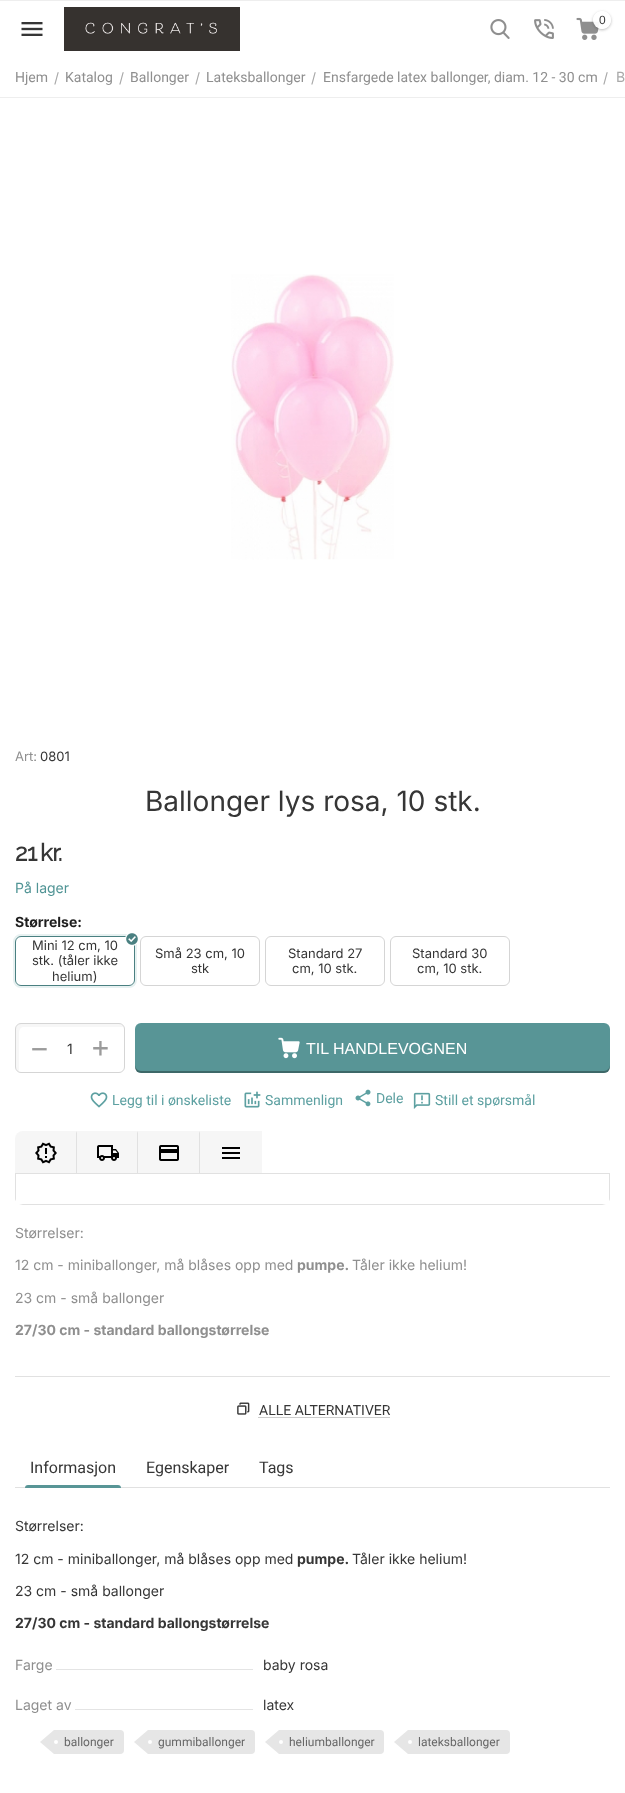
async function draw(canvas) {
  canvas.width = 625
  canvas.height = 1793
  const ctx = canvas.getContext('2d')
  ctx.miterLimit = 4
  ctx.fontKerning = 'normal'
  async function loadImage(src) {
    const img = new Image()
    img.src = src
    await img.decode()
    return img
  }

  ctx.fillStyle = '#fff'
  ctx.fillRect(0, 0, 625, 1793)
  ctx.fillStyle = '#eee'
  ctx.fillRect(0, 0, 625, 1)
  ctx.drawImage(await loadImage('image0.png'), 21, 22, 22, 14)
  ctx.drawImage(await loadImage('image1.png'), 64, 7, 176, 44)
  ctx.drawImage(await loadImage('image2.png'), 490, 19, 20, 20)
  ctx.drawImage(await loadImage('image3.png'), 534, 19, 20, 20)
  ctx.drawImage(await loadImage('image4.png'), 576, 17, 24, 23)
  ctx.save()
  ctx.beginPath()
  ctx.moveTo(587, 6)
  ctx.lineTo(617, 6)
  ctx.lineTo(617, 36)
  ctx.lineTo(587, 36)
  ctx.closePath()
  ctx.moveTo(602, 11)
  ctx.bezierCurveTo(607, 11, 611, 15, 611, 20)
  ctx.bezierCurveTo(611, 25, 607, 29, 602, 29)
  ctx.bezierCurveTo(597, 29, 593, 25, 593, 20)
  ctx.bezierCurveTo(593, 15, 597, 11, 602, 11)
  ctx.closePath()
  ctx.clip('evenodd')
  ctx.fillStyle = '#36363659'
  ctx.filter = 'blur(1.5px)'
  ctx.beginPath()
  ctx.roundRect(593, 12, 18, 18, 9)
  ctx.fill()
  ctx.filter = 'none'
  ctx.restore()
  ctx.fillStyle = '#fffffff2'
  ctx.beginPath()
  ctx.arc(602, 20, 9, 0, 2 * Math.PI)
  ctx.fill()
  ctx.font = '12px Liberation Sans'
  ctx.fillStyle = '#363636'
  ctx.fillText('0', 599, 24)
  ctx.fillStyle = '#eee'
  ctx.fillRect(0, 97, 625, 1)
  ctx.font = '14px Roboto'
  ctx.fillStyle = '#8f8f8f'
  ctx.fillText('Hjem', 15, 82)
  ctx.font = '14px Inter'
  ctx.fillStyle = '#a9a9a9'
  ctx.fillText('/', 54, 83)
  ctx.font = '14px Roboto'
  ctx.fillStyle = '#8f8f8f'
  ctx.fillText('Katalog', 65, 82)
  ctx.font = '14px Inter'
  ctx.fillStyle = '#a9a9a9'
  ctx.fillText('/', 119, 83)
  ctx.font = '14px Roboto'
  ctx.fillStyle = '#8f8f8f'
  ctx.fillText('Ballonger', 130, 82)
  ctx.font = '14px Inter'
  ctx.fillStyle = '#a9a9a9'
  ctx.fillText('/', 195, 83)
  ctx.font = '14px Roboto'
  ctx.fillStyle = '#8f8f8f'
  ctx.fillText('Lateksballonger', 206, 82)
  ctx.font = '14px Inter'
  ctx.fillStyle = '#a9a9a9'
  ctx.fillText('/', 311, 83)
  ctx.font = '14px Roboto'
  ctx.fillStyle = '#8f8f8f'
  ctx.fillText('Ensfargede latex ballonger, diam. 12 - 30 cm', 323, 82)
  ctx.font = '14px Inter'
  ctx.fillStyle = '#a9a9a9'
  ctx.fillText('/', 603, 83)
  ctx.fillText('B', 616, 82)
  ctx.drawImage(await loadImage('image5.png'), 231, 274, 163, 286)
  ctx.font = '13px Inter'
  ctx.fillStyle = '#8f8f8f'
  ctx.fillText('Art:', 15, 761)
  ctx.fillStyle = '#363636'
  ctx.fillText('0801', 40, 761)
  ctx.font = '28px Inter'
  ctx.fillText('Ballonger lys rosa, 10 stk.', 145, 811)
  ctx.letterSpacing = '-0.5px'
  ctx.font = 'bold 24px Raleway'
  ctx.fillText('21', 15, 861)
  ctx.fillText('kr.', 40, 861)
  ctx.letterSpacing = '0px'
  ctx.font = '14px Inter'
  ctx.fillStyle = '#509495'
  ctx.fillText('På lager', 15, 893)
  ctx.font = 'bold 14px Inter'
  ctx.fillStyle = '#1d1d1d'
  ctx.fillText('Størrelse:', 15, 927)
  ctx.beginPath()
  ctx.roundRect(14, 935, 122, 52, 7)
  ctx.strokeStyle = '#e7f1f1'
  ctx.lineWidth = 2
  ctx.stroke()
  ctx.beginPath()
  ctx.roundRect(15.5, 936.5, 119, 49, 5.5)
  ctx.strokeStyle = '#4a8081'
  ctx.lineWidth = 1
  ctx.stroke()
  ctx.font = '13px Inter'
  ctx.fillStyle = '#363636'
  ctx.fillText('Mini 12 cm, 10', 32, 950)
  ctx.fillText('stk. (tåler ikke', 32, 965)
  ctx.fillText('helium)', 52, 981)
  ctx.fillStyle = '#fff'
  ctx.beginPath()
  ctx.arc(132, 939, 7, 0, 2 * Math.PI)
  ctx.fill()
  ctx.drawImage(await loadImage('image6.png'), 126, 933, 12, 12)
  ctx.beginPath()
  ctx.roundRect(140.5, 936.5, 119, 49, 5.5)
  ctx.strokeStyle = '#d5d5d5'
  ctx.stroke()
  ctx.fillStyle = '#363636'
  ctx.fillText('Små 23 cm, 10', 155, 958)
  ctx.fillText('stk', 191, 973)
  ctx.beginPath()
  ctx.roundRect(265.5, 936.5, 119, 49, 5.5)
  ctx.stroke()
  ctx.fillText('Standard 27', 288, 958)
  ctx.fillText('cm, 10 stk.', 292, 973)
  ctx.beginPath()
  ctx.roundRect(390.5, 936.5, 119, 49, 5.5)
  ctx.stroke()
  ctx.fillText('Standard 30', 412, 958)
  ctx.fillText('cm, 10 stk.', 417, 973)
  ctx.fillStyle = '#f7f7f7'
  ctx.beginPath()
  ctx.moveTo(24, 1027)
  ctx.lineTo(124, 1027)
  ctx.bezierCurveTo(123, 1025, 121, 1024, 119, 1024)
  ctx.lineTo(21, 1024)
  ctx.bezierCurveTo(18, 1024, 16, 1026, 16, 1029)
  ctx.lineTo(16, 1067)
  ctx.bezierCurveTo(16, 1069, 17, 1071, 19, 1072)
  ctx.lineTo(19, 1038)
  ctx.bezierCurveTo(19, 1034, 18, 1027, 24, 1027)
  ctx.closePath()
  ctx.fill()
  ctx.beginPath()
  ctx.roundRect(15.5, 1023.5, 109, 49, 5.5)
  ctx.stroke()
  ctx.font = '28px DejaVu Sans Mono'
  ctx.fillStyle = '#9b9b9b'
  ctx.fillText('−', 31, 1058)
  ctx.font = '14px Inter'
  ctx.fillStyle = '#363636'
  ctx.fillText('1', 67, 1054)
  ctx.font = '28px DejaVu Sans Mono'
  ctx.fillStyle = '#9b9b9b'
  ctx.fillText('+', 92, 1057)
  ctx.fillStyle = '#589596'
  ctx.beginPath()
  ctx.roundRect(135, 1023, 475, 50, 6)
  ctx.fill()
  ctx.fillStyle = '#0000004d'
  ctx.beginPath()
  ctx.moveTo(135, 1065)
  ctx.bezierCurveTo(135, 1069, 136, 1073, 141, 1073)
  ctx.lineTo(604, 1073)
  ctx.bezierCurveTo(609, 1073, 610, 1069, 610, 1065)
  ctx.bezierCurveTo(610, 1068, 607, 1071, 604, 1071)
  ctx.lineTo(141, 1071)
  ctx.bezierCurveTo(138, 1071, 135, 1068, 135, 1065)
  ctx.closePath()
  ctx.fill()
  ctx.drawImage(await loadImage('image7.png'), 278, 1037, 22, 22)
  ctx.font = '16px Liberation Sans'
  ctx.fillStyle = '#fff'
  ctx.fillText('TIL HANDLEVOGNEN', 306, 1054)
  ctx.drawImage(await loadImage('image8.png'), 90, 1092, 18, 16)
  ctx.font = '14px Roboto'
  ctx.fillStyle = '#5da0a1'
  ctx.fillText('Legg til i ønskeliste', 112, 1105)
  ctx.drawImage(await loadImage('image9.png'), 244, 1091, 17, 17)
  ctx.fillText('Sammenlign', 265, 1105)
  ctx.drawImage(await loadImage('image10.png'), 355, 1089, 16, 18)
  ctx.fillText('Dele', 376, 1103)
  ctx.drawImage(await loadImage('image11.png'), 413, 1092, 18, 17)
  ctx.fillText('Still et spørsmål', 435, 1105)
  ctx.fillStyle = '#f6f6f6'
  ctx.beginPath()
  ctx.roundRect(15, 1131, 62, 43, [8, 0, 0, 0])
  ctx.fill()
  ctx.fillStyle = '#e1e1e1'
  ctx.beginPath()
  ctx.moveTo(77, 1131)
  ctx.lineTo(77, 1174)
  ctx.lineTo(76, 1173)
  ctx.lineTo(76, 1133)
  ctx.closePath()
  ctx.fill()
  ctx.drawImage(await loadImage('image12.png'), 35, 1142, 22, 22)
  ctx.fillStyle = '#f6f6f6'
  ctx.fillRect(77, 1131, 185, 42)
  ctx.fillStyle = '#e1e1e1'
  ctx.beginPath()
  ctx.moveTo(138, 1131)
  ctx.lineTo(138, 1174)
  ctx.lineTo(137, 1173)
  ctx.lineTo(137, 1133)
  ctx.closePath()
  ctx.fill()
  ctx.drawImage(await loadImage('image13.png'), 97, 1145, 22, 16)
  ctx.beginPath()
  ctx.moveTo(200, 1131)
  ctx.lineTo(200, 1174)
  ctx.lineTo(199, 1173)
  ctx.lineTo(199, 1133)
  ctx.closePath()
  ctx.fill()
  ctx.drawImage(await loadImage('image14.png'), 159, 1145, 20, 16)
  ctx.drawImage(await loadImage('image15.png'), 222, 1147, 18, 12)
  ctx.fillStyle = '#fff'
  ctx.beginPath()
  ctx.roundRect(15, 1173, 595, 32, [0, 0, 8, 8])
  ctx.fill()
  ctx.fillStyle = '#e1e1e1'
  ctx.beginPath()
  ctx.moveTo(16, 1174)
  ctx.lineTo(609, 1174)
  ctx.lineTo(609, 1201)
  ctx.bezierCurveTo(610, 1200, 610, 1199, 610, 1197)
  ctx.lineTo(610, 1173)
  ctx.lineTo(15, 1173)
  ctx.lineTo(15, 1197)
  ctx.bezierCurveTo(15, 1199, 15, 1200, 16, 1201)
  ctx.lineTo(16, 1200)
  ctx.closePath()
  ctx.moveTo(602, 1205)
  ctx.lineTo(606, 1204)
  ctx.lineTo(19, 1204)
  ctx.lineTo(23, 1205)
  ctx.closePath()
  ctx.fill('evenodd')
  ctx.font = '14px Inter'
  ctx.fillStyle = '#8f8f8f'
  ctx.fillText('Størrelser:', 15, 1238)
  ctx.fillText('12 cm - miniballonger, må blåses opp med', 15, 1270)
  ctx.font = 'bold 14px Inter'
  ctx.fillText('pumpe.', 297, 1270)
  ctx.font = '14px Inter'
  ctx.fillText('Tåler ikke helium!', 352, 1270)
  ctx.fillText('23 cm - små ballonger', 15, 1303)
  ctx.font = 'bold 14px Inter'
  ctx.fillText('27/30 cm - standard ballongstørrelse', 15, 1335)
  ctx.fillStyle = '#e1e1e1'
  ctx.fillRect(15, 1376, 595, 1)
  ctx.drawImage(await loadImage('image16.png'), 237, 1402, 13, 13)
  ctx.font = '14px Roboto'
  ctx.fillStyle = '#363636'
  ctx.fillText('ALLE ALTERNATIVER', 259, 1415)
  ctx.beginPath()
  ctx.moveTo(258.5, 1417.5)
  ctx.lineTo(390, 1417.5)
  ctx.strokeStyle = '#9b9b9b'
  ctx.setLineDash([1, 1])
  ctx.stroke()
  ctx.font = '16px Roboto'
  ctx.fillText('Informasjon', 30, 1473)
  ctx.fillStyle = '#e1e1e1'
  ctx.fillRect(15, 1487, 595, 1)
  ctx.fillStyle = '#589596'
  ctx.beginPath()
  ctx.roundRect(25, 1485, 96, 3, [3, 3, 0, 0])
  ctx.fill()
  ctx.fillStyle = '#363636'
  ctx.fillText('Egenskaper', 146, 1473)
  ctx.fillText('Tags', 259, 1473)
  ctx.font = '14px Inter'
  ctx.fillText('Størrelser:', 15, 1531)
  ctx.fillText('12 cm - miniballonger, må blåses opp med', 15, 1564)
  ctx.font = 'bold 14px Inter'
  ctx.fillText('pumpe.', 297, 1564)
  ctx.font = '14px Inter'
  ctx.fillText('Tåler ikke helium!', 352, 1564)
  ctx.fillText('23 cm - små ballonger', 15, 1596)
  ctx.font = 'bold 14px Inter'
  ctx.fillText('27/30 cm - standard ballongstørrelse', 15, 1628)
  ctx.font = '14px Inter'
  ctx.fillStyle = '#8f8f8f'
  ctx.fillText('Farge', 15, 1670)
  ctx.fillStyle = '#e4e4e4'
  ctx.fillRect(56, 1669, 197, 1)
  ctx.fillStyle = '#363636'
  ctx.fillText('baby rosa', 263, 1670)
  ctx.fillStyle = '#8f8f8f'
  ctx.fillText('Laget av', 15, 1710)
  ctx.fillStyle = '#e4e4e4'
  ctx.fillRect(75, 1709, 178, 1)
  ctx.fillStyle = '#363636'
  ctx.fillText('latex', 263, 1710)
  ctx.fillStyle = '#e6e6e6'
  ctx.beginPath()
  ctx.roundRect(54, 1730, 70, 24, [0, 4, 4, 0])
  ctx.fill()
  ctx.beginPath()
  ctx.moveTo(54, 1730)
  ctx.lineTo(54, 1754)
  ctx.lineTo(40, 1742)
  ctx.closePath()
  ctx.fill()
  ctx.fillStyle = '#fff'
  ctx.beginPath()
  ctx.arc(56, 1742, 2, 0, 2 * Math.PI)
  ctx.fill()
  ctx.font = '12px Roboto'
  ctx.fillStyle = '#676767'
  ctx.fillText('ballonger', 64, 1746)
  ctx.fillStyle = '#e6e6e6'
  ctx.beginPath()
  ctx.roundRect(148, 1730, 107, 24, [0, 4, 4, 0])
  ctx.fill()
  ctx.beginPath()
  ctx.moveTo(148, 1730)
  ctx.lineTo(148, 1754)
  ctx.lineTo(134, 1742)
  ctx.closePath()
  ctx.fill()
  ctx.fillStyle = '#fff'
  ctx.beginPath()
  ctx.arc(150, 1742, 2, 0, 2 * Math.PI)
  ctx.fill()
  ctx.fillStyle = '#676767'
  ctx.fillText('gummiballonger', 158, 1746)
  ctx.fillStyle = '#e6e6e6'
  ctx.beginPath()
  ctx.roundRect(279, 1730, 105, 24, [0, 4, 4, 0])
  ctx.fill()
  ctx.beginPath()
  ctx.moveTo(279, 1730)
  ctx.lineTo(279, 1754)
  ctx.lineTo(265, 1742)
  ctx.closePath()
  ctx.fill()
  ctx.fillStyle = '#fff'
  ctx.beginPath()
  ctx.arc(281, 1742, 2, 0, 2 * Math.PI)
  ctx.fill()
  ctx.fillStyle = '#676767'
  ctx.fillText('heliumballonger', 289, 1746)
  ctx.fillStyle = '#e6e6e6'
  ctx.beginPath()
  ctx.roundRect(408, 1730, 102, 24, [0, 4, 4, 0])
  ctx.fill()
  ctx.beginPath()
  ctx.moveTo(408, 1730)
  ctx.lineTo(408, 1754)
  ctx.lineTo(394, 1742)
  ctx.closePath()
  ctx.fill()
  ctx.fillStyle = '#fff'
  ctx.beginPath()
  ctx.arc(410, 1742, 2, 0, 2 * Math.PI)
  ctx.fill()
  ctx.fillStyle = '#676767'
  ctx.fillText('lateksballonger', 418, 1746)
}

draw(document.querySelector('canvas'))
